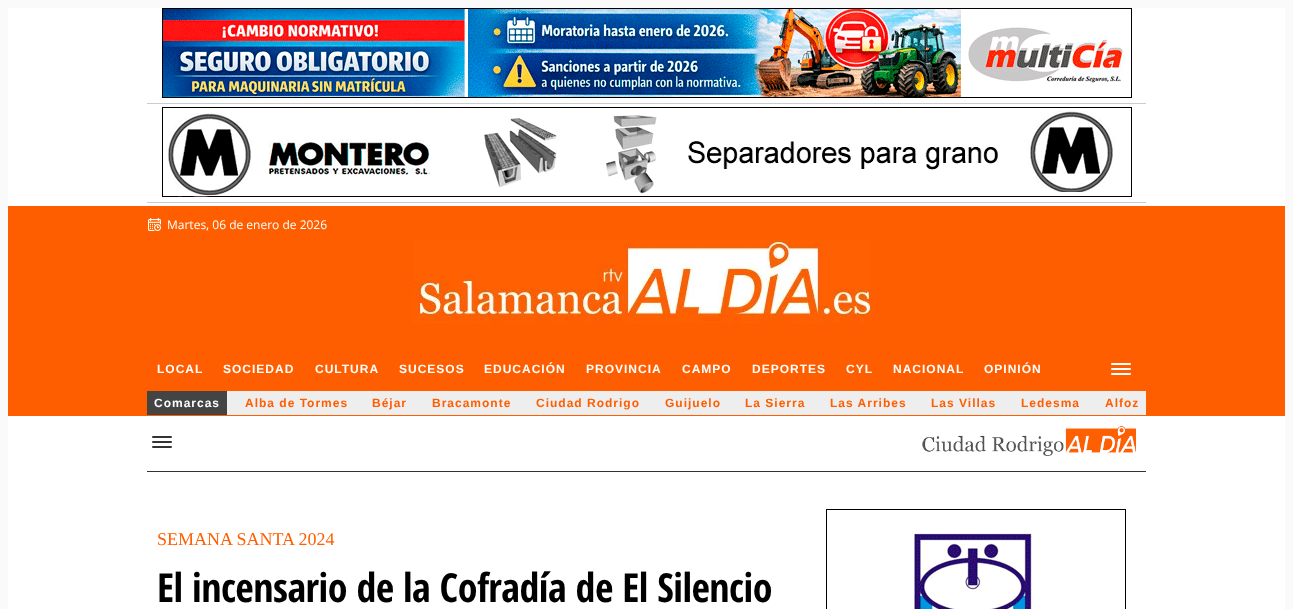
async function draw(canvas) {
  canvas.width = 1293
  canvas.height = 609
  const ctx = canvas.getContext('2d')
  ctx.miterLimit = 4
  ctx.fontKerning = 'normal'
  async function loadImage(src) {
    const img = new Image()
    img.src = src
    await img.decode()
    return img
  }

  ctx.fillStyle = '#fafafa'
  ctx.fillRect(0, 0, 1293, 609)
  ctx.fillStyle = '#fff'
  ctx.fillRect(8, 8, 1277, 601)
  ctx.fillStyle = '#ccc'
  ctx.fillRect(147, 103, 999, 1)
  ctx.drawImage(await loadImage('image0.png'), 162, 8, 970, 90)
  ctx.fillRect(147, 202, 999, 1)
  ctx.drawImage(await loadImage('image1.png'), 162, 107, 970, 90)
  ctx.fillStyle = '#ff5e00'
  ctx.fillRect(8, 206, 1277, 210)
  ctx.drawImage(await loadImage('image2.png'), 148, 218, 13, 13)
  ctx.font = '12px Open Sans'
  ctx.fillStyle = '#fff'
  ctx.fillText('Martes, 06 de enero de 2026', 167, 229)
  ctx.drawImage(await loadImage('image3.png'), 413, 240, 458, 83)
  ctx.letterSpacing = '1px'
  ctx.font = 'bold 12px Liberation Sans'
  ctx.fillText('LOCAL', 157, 373)
  ctx.fillText('SOCIEDAD', 223, 373)
  ctx.fillText('CULTURA', 315, 373)
  ctx.fillText('SUCESOS', 399, 373)
  ctx.fillText('EDUCACIÓN', 484, 373)
  ctx.fillText('PROVINCIA', 586, 373)
  ctx.fillText('CAMPO', 682, 373)
  ctx.fillText('DEPORTES', 752, 373)
  ctx.fillText('CYL', 846, 373)
  ctx.fillText('NACIONAL', 893, 373)
  ctx.fillText('OPINIÓN', 984, 373)
  ctx.beginPath()
  ctx.roundRect(1111, 368, 20, 2, 1)
  ctx.fill()
  ctx.beginPath()
  ctx.roundRect(1111, 363, 20, 2, 1)
  ctx.fill()
  ctx.beginPath()
  ctx.roundRect(1111, 373, 20, 2, 1)
  ctx.fill()
  ctx.fillStyle = '#eee'
  ctx.fillRect(227, 391, 919, 24)
  ctx.fillStyle = '#444'
  ctx.fillRect(147, 391, 80, 24)
  ctx.fillStyle = '#fff'
  ctx.fillText('Comarcas', 154, 407)
  ctx.fillStyle = '#ff5e00'
  ctx.fillText('Alba de Tormes', 245, 407)
  ctx.fillText('Béjar', 372, 407)
  ctx.fillText('Bracamonte', 432, 407)
  ctx.fillText('Ciudad Rodrigo', 536, 407)
  ctx.fillText('Guijuelo', 665, 407)
  ctx.fillText('La Sierra', 745, 407)
  ctx.fillText('Las Arribes', 830, 407)
  ctx.fillText('Las Villas', 931, 407)
  ctx.fillText('Ledesma', 1021, 407)
  ctx.fillText('Alfoz', 1105, 407)
  ctx.fillStyle = '#333'
  ctx.fillRect(147, 471, 999, 1)
  ctx.beginPath()
  ctx.roundRect(152, 441, 20, 2, 1)
  ctx.fill()
  ctx.beginPath()
  ctx.roundRect(152, 436, 20, 2, 1)
  ctx.fill()
  ctx.beginPath()
  ctx.roundRect(152, 446, 20, 2, 1)
  ctx.fill()
  ctx.drawImage(await loadImage('image4.png'), 922, 426, 214, 30)
  ctx.letterSpacing = '0px'
  ctx.font = '18px Liberation Serif'
  ctx.fillStyle = '#ff5e00'
  ctx.fillText('SEMANA SANTA 2024', 157, 545)
  ctx.letterSpacing = '-0.5px'
  ctx.font = 'bold 40px Open Sans Condensed'
  ctx.fillStyle = '#000'
  ctx.fillText('El incensario de la Cofradía de El Silencio', 157, 602)
  ctx.drawImage(await loadImage('image5.png'), 826, 509, 300, 100)
}

draw(document.querySelector('canvas'))
